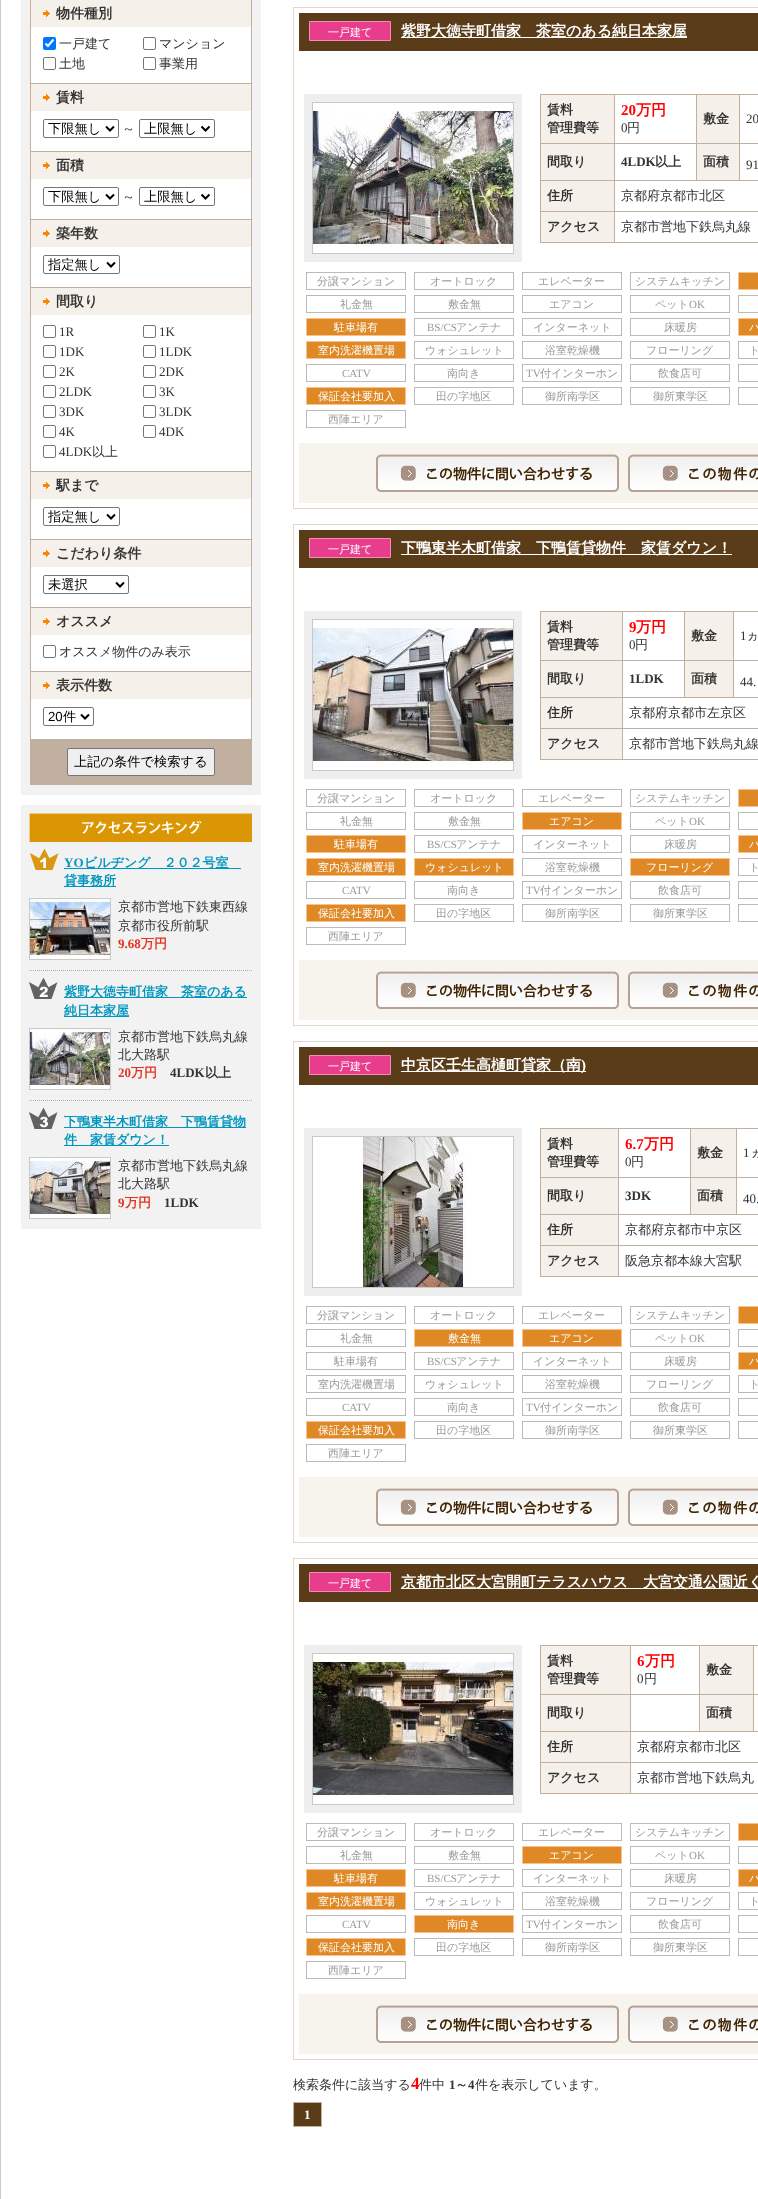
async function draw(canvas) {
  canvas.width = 758
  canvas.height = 2199
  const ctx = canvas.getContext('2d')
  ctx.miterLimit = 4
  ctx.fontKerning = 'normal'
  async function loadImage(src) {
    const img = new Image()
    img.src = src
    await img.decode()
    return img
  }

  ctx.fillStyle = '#fff'
  ctx.fillRect(0, 0, 758, 2199)
  ctx.strokeStyle = '#ccc'
  ctx.strokeRect(0.5, -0.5, 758, 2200)
  ctx.fillStyle = '#f2f2f2'
  ctx.fillRect(21, 0, 240, 795)
  ctx.fillStyle = '#fff'
  ctx.fillRect(31, 27, 220, 712)
  ctx.strokeStyle = '#c1b0a0'
  ctx.strokeRect(30.5, -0.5, 221, 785)
  ctx.fillStyle = '#f5f0e9'
  ctx.fillRect(31, 0, 220, 27)
  ctx.drawImage(await loadImage('image0.png'), 43, 10, 7, 7)
  ctx.font = 'bold 14px WenQuanYi Zen Hei'
  ctx.fillStyle = '#333'
  ctx.fillText('物件種別', 56, 18)
  ctx.fillStyle = '#c1b0a0'
  ctx.fillRect(31, 83, 220, 1)
  ctx.fillStyle = '#0075ff'
  ctx.beginPath()
  ctx.roundRect(43, 37, 13, 13, 2)
  ctx.fill()
  ctx.beginPath()
  ctx.moveTo(45.5, 43.5)
  ctx.lineTo(48, 46)
  ctx.lineTo(53.5, 39.5)
  ctx.strokeStyle = '#fff'
  ctx.lineWidth = 2.1
  ctx.stroke()
  ctx.font = '500 13px WenQuanYi Zen Hei'
  ctx.fillStyle = '#333'
  ctx.fillText('一戸建て', 59, 48)
  ctx.beginPath()
  ctx.roundRect(143.5, 37.5, 12, 12, 1.5)
  ctx.strokeStyle = '#767676'
  ctx.lineWidth = 1
  ctx.stroke()
  ctx.fillText('マンション', 159, 48)
  ctx.beginPath()
  ctx.roundRect(43.5, 57.5, 12, 12, 1.5)
  ctx.stroke()
  ctx.fillText('土地', 59, 68)
  ctx.beginPath()
  ctx.roundRect(143.5, 57.5, 12, 12, 1.5)
  ctx.stroke()
  ctx.fillText('事業用', 159, 68)
  ctx.fillStyle = '#f5f0e9'
  ctx.fillRect(31, 84, 220, 27)
  ctx.drawImage(await loadImage('image0.png'), 43, 94, 7, 7)
  ctx.font = 'bold 14px WenQuanYi Zen Hei'
  ctx.fillStyle = '#333'
  ctx.fillText('賃料', 56, 102)
  ctx.fillStyle = '#c1b0a0'
  ctx.fillRect(31, 151, 220, 1)
  ctx.beginPath()
  ctx.roundRect(43.5, 119.5, 75, 18, 1.5)
  ctx.stroke()
  ctx.beginPath()
  ctx.moveTo(106, 126.5)
  ctx.lineTo(110, 130.5)
  ctx.lineTo(114, 126.5)
  ctx.strokeStyle = '#000'
  ctx.lineWidth = 2
  ctx.stroke()
  ctx.font = '500 13.25px WenQuanYi Zen Hei'
  ctx.fillStyle = '#000'
  ctx.fillText('下限無し', 48, 133)
  ctx.font = '500 13px WenQuanYi Zen Hei'
  ctx.fillStyle = '#333'
  ctx.fillText('～', 122, 133)
  ctx.beginPath()
  ctx.roundRect(139.5, 119.5, 75, 18, 1.5)
  ctx.strokeStyle = '#767676'
  ctx.lineWidth = 1
  ctx.stroke()
  ctx.beginPath()
  ctx.moveTo(201.5, 126.5)
  ctx.lineTo(205.5, 130.5)
  ctx.lineTo(209.5, 126.5)
  ctx.strokeStyle = '#000'
  ctx.lineWidth = 2
  ctx.stroke()
  ctx.font = '500 13.25px WenQuanYi Zen Hei'
  ctx.fillStyle = '#000'
  ctx.fillText('上限無し', 144, 133)
  ctx.fillStyle = '#f5f0e9'
  ctx.fillRect(31, 152, 220, 27)
  ctx.drawImage(await loadImage('image0.png'), 43, 162, 7, 7)
  ctx.font = 'bold 14px WenQuanYi Zen Hei'
  ctx.fillStyle = '#333'
  ctx.fillText('面積', 56, 170)
  ctx.fillStyle = '#c1b0a0'
  ctx.fillRect(31, 219, 220, 1)
  ctx.beginPath()
  ctx.roundRect(43.5, 187.5, 75, 18, 1.5)
  ctx.strokeStyle = '#767676'
  ctx.lineWidth = 1
  ctx.stroke()
  ctx.beginPath()
  ctx.moveTo(106, 194.5)
  ctx.lineTo(110, 198.5)
  ctx.lineTo(114, 194.5)
  ctx.strokeStyle = '#000'
  ctx.lineWidth = 2
  ctx.stroke()
  ctx.font = '500 13.25px WenQuanYi Zen Hei'
  ctx.fillStyle = '#000'
  ctx.fillText('下限無し', 48, 201)
  ctx.font = '500 13px WenQuanYi Zen Hei'
  ctx.fillStyle = '#333'
  ctx.fillText('～', 122, 201)
  ctx.beginPath()
  ctx.roundRect(139.5, 187.5, 75, 18, 1.5)
  ctx.strokeStyle = '#767676'
  ctx.lineWidth = 1
  ctx.stroke()
  ctx.beginPath()
  ctx.moveTo(201.5, 194.5)
  ctx.lineTo(205.5, 198.5)
  ctx.lineTo(209.5, 194.5)
  ctx.strokeStyle = '#000'
  ctx.lineWidth = 2
  ctx.stroke()
  ctx.font = '500 13.25px WenQuanYi Zen Hei'
  ctx.fillStyle = '#000'
  ctx.fillText('上限無し', 144, 201)
  ctx.fillStyle = '#f5f0e9'
  ctx.fillRect(31, 220, 220, 27)
  ctx.drawImage(await loadImage('image0.png'), 43, 230, 7, 7)
  ctx.font = 'bold 14px WenQuanYi Zen Hei'
  ctx.fillStyle = '#333'
  ctx.fillText('築年数', 56, 238)
  ctx.fillStyle = '#c1b0a0'
  ctx.fillRect(31, 287, 220, 1)
  ctx.beginPath()
  ctx.roundRect(43.5, 255.5, 76, 18, 1.5)
  ctx.strokeStyle = '#767676'
  ctx.lineWidth = 1
  ctx.stroke()
  ctx.beginPath()
  ctx.moveTo(107, 262.5)
  ctx.lineTo(111, 266.5)
  ctx.lineTo(115, 262.5)
  ctx.strokeStyle = '#000'
  ctx.lineWidth = 2
  ctx.stroke()
  ctx.font = '500 13.25px WenQuanYi Zen Hei'
  ctx.fillStyle = '#000'
  ctx.fillText('指定無し', 48, 269)
  ctx.fillStyle = '#f5f0e9'
  ctx.fillRect(31, 288, 220, 27)
  ctx.drawImage(await loadImage('image0.png'), 43, 298, 7, 7)
  ctx.font = 'bold 14px WenQuanYi Zen Hei'
  ctx.fillStyle = '#333'
  ctx.fillText('間取り', 56, 306)
  ctx.fillStyle = '#c1b0a0'
  ctx.fillRect(31, 471, 220, 1)
  ctx.beginPath()
  ctx.roundRect(43.5, 325.5, 12, 12, 1.5)
  ctx.strokeStyle = '#767676'
  ctx.lineWidth = 1
  ctx.stroke()
  ctx.font = '13px Liberation Serif'
  ctx.fillStyle = '#333'
  ctx.fillText('1R', 59, 336)
  ctx.beginPath()
  ctx.roundRect(143.5, 325.5, 12, 12, 1.5)
  ctx.stroke()
  ctx.fillText('1K', 159, 336)
  ctx.beginPath()
  ctx.roundRect(43.5, 345.5, 12, 12, 1.5)
  ctx.stroke()
  ctx.fillText('1DK', 59, 356)
  ctx.beginPath()
  ctx.roundRect(143.5, 345.5, 12, 12, 1.5)
  ctx.stroke()
  ctx.fillText('1LDK', 159, 356)
  ctx.beginPath()
  ctx.roundRect(43.5, 365.5, 12, 12, 1.5)
  ctx.stroke()
  ctx.fillText('2K', 59, 376)
  ctx.beginPath()
  ctx.roundRect(143.5, 365.5, 12, 12, 1.5)
  ctx.stroke()
  ctx.fillText('2DK', 159, 376)
  ctx.beginPath()
  ctx.roundRect(43.5, 385.5, 12, 12, 1.5)
  ctx.stroke()
  ctx.fillText('2LDK', 59, 396)
  ctx.beginPath()
  ctx.roundRect(143.5, 385.5, 12, 12, 1.5)
  ctx.stroke()
  ctx.fillText('3K', 159, 396)
  ctx.beginPath()
  ctx.roundRect(43.5, 405.5, 12, 12, 1.5)
  ctx.stroke()
  ctx.fillText('3DK', 59, 416)
  ctx.beginPath()
  ctx.roundRect(143.5, 405.5, 12, 12, 1.5)
  ctx.stroke()
  ctx.fillText('3LDK', 159, 416)
  ctx.beginPath()
  ctx.roundRect(43.5, 425.5, 12, 12, 1.5)
  ctx.stroke()
  ctx.fillText('4K', 59, 436)
  ctx.beginPath()
  ctx.roundRect(143.5, 425.5, 12, 12, 1.5)
  ctx.stroke()
  ctx.fillText('4DK', 159, 436)
  ctx.beginPath()
  ctx.roundRect(43.5, 445.5, 12, 12, 1.5)
  ctx.stroke()
  ctx.fillText('4LDK', 59, 456)
  ctx.font = '500 13px WenQuanYi Zen Hei'
  ctx.fillText('以上', 92, 456)
  ctx.fillStyle = '#f5f0e9'
  ctx.fillRect(31, 472, 220, 27)
  ctx.drawImage(await loadImage('image0.png'), 43, 482, 7, 7)
  ctx.font = 'bold 14px WenQuanYi Zen Hei'
  ctx.fillStyle = '#333'
  ctx.fillText('駅まで', 56, 490)
  ctx.fillStyle = '#c1b0a0'
  ctx.fillRect(31, 539, 220, 1)
  ctx.beginPath()
  ctx.roundRect(43.5, 507.5, 76, 18, 1.5)
  ctx.stroke()
  ctx.beginPath()
  ctx.moveTo(107, 514.5)
  ctx.lineTo(111, 518.5)
  ctx.lineTo(115, 514.5)
  ctx.strokeStyle = '#000'
  ctx.lineWidth = 2
  ctx.stroke()
  ctx.font = '500 13.25px WenQuanYi Zen Hei'
  ctx.fillStyle = '#000'
  ctx.fillText('指定無し', 48, 521)
  ctx.fillStyle = '#f5f0e9'
  ctx.fillRect(31, 540, 220, 27)
  ctx.drawImage(await loadImage('image0.png'), 43, 550, 7, 7)
  ctx.font = 'bold 14px WenQuanYi Zen Hei'
  ctx.fillStyle = '#333'
  ctx.fillText('こだわり条件', 56, 558)
  ctx.fillStyle = '#c1b0a0'
  ctx.fillRect(31, 607, 220, 1)
  ctx.beginPath()
  ctx.roundRect(43.5, 575.5, 85, 18, 1.5)
  ctx.strokeStyle = '#767676'
  ctx.lineWidth = 1
  ctx.stroke()
  ctx.beginPath()
  ctx.moveTo(116, 582.5)
  ctx.lineTo(120, 586.5)
  ctx.lineTo(124, 582.5)
  ctx.strokeStyle = '#000'
  ctx.lineWidth = 2
  ctx.stroke()
  ctx.font = '500 13.25px WenQuanYi Zen Hei'
  ctx.fillStyle = '#000'
  ctx.fillText('未選択', 48, 589)
  ctx.fillStyle = '#f5f0e9'
  ctx.fillRect(31, 608, 220, 27)
  ctx.drawImage(await loadImage('image0.png'), 43, 618, 7, 7)
  ctx.font = 'bold 14px WenQuanYi Zen Hei'
  ctx.fillStyle = '#333'
  ctx.fillText('オススメ', 56, 626)
  ctx.fillStyle = '#c1b0a0'
  ctx.fillRect(31, 671, 220, 1)
  ctx.beginPath()
  ctx.roundRect(43.5, 645.5, 12, 12, 1.5)
  ctx.strokeStyle = '#767676'
  ctx.lineWidth = 1
  ctx.stroke()
  ctx.font = '500 13px WenQuanYi Zen Hei'
  ctx.fillStyle = '#333'
  ctx.fillText('オススメ物件のみ表示', 59, 656)
  ctx.fillStyle = '#f5f0e9'
  ctx.fillRect(31, 672, 220, 27)
  ctx.drawImage(await loadImage('image0.png'), 43, 682, 7, 7)
  ctx.font = 'bold 14px WenQuanYi Zen Hei'
  ctx.fillStyle = '#333'
  ctx.fillText('表示件数', 56, 690)
  ctx.fillStyle = '#c1b0a0'
  ctx.fillRect(31, 739, 220, 45)
  ctx.beginPath()
  ctx.roundRect(43.5, 707.5, 50, 18, 1.5)
  ctx.stroke()
  ctx.beginPath()
  ctx.moveTo(81, 714.5)
  ctx.lineTo(85, 718.5)
  ctx.lineTo(89, 714.5)
  ctx.strokeStyle = '#000'
  ctx.lineWidth = 2
  ctx.stroke()
  ctx.font = '13.25px Liberation Sans'
  ctx.fillStyle = '#000'
  ctx.fillText('20', 48, 721)
  ctx.font = '500 13.25px WenQuanYi Zen Hei'
  ctx.fillText('件', 63, 721)
  ctx.fillStyle = '#efefef'
  ctx.beginPath()
  ctx.roundRect(67.5, 748.5, 147, 27, 1.5)
  ctx.fill()
  ctx.strokeStyle = '#767676'
  ctx.lineWidth = 1
  ctx.stroke()
  ctx.fillStyle = '#000'
  ctx.fillText('上記の条件で検索する', 74, 766)
  ctx.fillStyle = '#f2f2f2'
  ctx.fillRect(21, 805, 240, 424)
  ctx.drawImage(await loadImage('image1.png'), 29, 813, 223, 29)
  ctx.beginPath()
  ctx.moveTo(29, 970.5)
  ctx.lineTo(253, 970.5)
  ctx.strokeStyle = '#b1b1b1'
  ctx.setLineDash([1, 1])
  ctx.stroke()
  ctx.drawImage(await loadImage('image2.png'), 30, 849, 29, 21)
  ctx.font = 'bold 13px Liberation Serif'
  ctx.fillStyle = '#0096bf'
  ctx.fillText('YO', 64, 867)
  ctx.fillRect(64, 868, 177, 1)
  ctx.font = 'bold 13px WenQuanYi Zen Hei'
  ctx.fillText('ビルヂング　２０２号室', 84, 867)
  ctx.fillRect(64, 886, 52, 1)
  ctx.fillText('貸事務所', 64, 885)
  ctx.strokeStyle = '#c9c9c9'
  ctx.setLineDash([])
  ctx.strokeRect(29.5, 898.5, 81, 61)
  ctx.drawImage(await loadImage('image3.png'), 30, 899, 80, 60)
  ctx.font = '500 13px WenQuanYi Zen Hei'
  ctx.fillStyle = '#333'
  ctx.fillText('京都市営地下鉄東西線', 118, 911)
  ctx.fillText('京都市役所前駅', 118, 930)
  ctx.font = 'bold 13px Liberation Serif'
  ctx.fillStyle = '#e33421'
  ctx.fillText('9.68', 118, 948)
  ctx.font = 'bold 13px WenQuanYi Zen Hei'
  ctx.fillText('万円', 141, 948)
  ctx.beginPath()
  ctx.moveTo(29, 1100.5)
  ctx.lineTo(253, 1100.5)
  ctx.strokeStyle = '#b1b1b1'
  ctx.setLineDash([1, 1])
  ctx.stroke()
  ctx.drawImage(await loadImage('image4.png'), 29, 978, 29, 21)
  ctx.fillStyle = '#0096bf'
  ctx.fillRect(64, 997, 183, 1)
  ctx.fillText('紫野大徳寺町借家　茶室のある', 64, 996)
  ctx.fillRect(64, 1016, 65, 1)
  ctx.fillText('純日本家屋', 64, 1015)
  ctx.strokeStyle = '#c9c9c9'
  ctx.setLineDash([])
  ctx.strokeRect(29.5, 1028.5, 81, 61)
  ctx.drawImage(await loadImage('image5.png'), 30, 1029, 80, 60)
  ctx.font = '500 13px WenQuanYi Zen Hei'
  ctx.fillStyle = '#333'
  ctx.fillText('京都市営地下鉄烏丸線', 118, 1041)
  ctx.fillText('北大路駅', 118, 1059)
  ctx.font = 'bold 13px Liberation Serif'
  ctx.fillStyle = '#e33421'
  ctx.fillText('20', 118, 1077)
  ctx.font = 'bold 13px WenQuanYi Zen Hei'
  ctx.fillText('万円', 131, 1077)
  ctx.font = 'bold 13px Liberation Serif'
  ctx.fillStyle = '#333'
  ctx.fillText('4LDK', 170, 1077)
  ctx.font = 'bold 13px WenQuanYi Zen Hei'
  ctx.fillText('以上', 205, 1077)
  ctx.drawImage(await loadImage('image6.png'), 29, 1108, 29, 21)
  ctx.fillStyle = '#0096bf'
  ctx.fillRect(64, 1127, 182, 1)
  ctx.fillText('下鴨東半木町借家　下鴨賃貸物', 64, 1126)
  ctx.fillRect(64, 1145, 105, 1)
  ctx.fillText('件　家賃ダウン！', 64, 1144)
  ctx.strokeRect(29.5, 1157.5, 81, 61)
  ctx.drawImage(await loadImage('image7.png'), 30, 1158, 80, 60)
  ctx.font = '500 13px WenQuanYi Zen Hei'
  ctx.fillStyle = '#333'
  ctx.fillText('京都市営地下鉄烏丸線', 118, 1170)
  ctx.fillText('北大路駅', 118, 1188)
  ctx.font = 'bold 13px Liberation Serif'
  ctx.fillStyle = '#e33421'
  ctx.fillText('9', 118, 1207)
  ctx.font = 'bold 13px WenQuanYi Zen Hei'
  ctx.fillText('万円', 125, 1207)
  ctx.font = 'bold 13px Liberation Serif'
  ctx.fillStyle = '#333'
  ctx.fillText('1LDK', 164, 1207)
  ctx.strokeStyle = '#e3d7c6'
  ctx.strokeRect(293.5, 7.5, 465, 501)
  ctx.fillStyle = '#5a3c19'
  ctx.fillRect(299, 13, 459, 38)
  ctx.fillStyle = '#e83d8c'
  ctx.beginPath()
  ctx.rect(309.5, 21.5, 81, 19)
  ctx.fill()
  ctx.strokeStyle = '#f38bbb'
  ctx.stroke()
  ctx.font = '500 11px WenQuanYi Zen Hei'
  ctx.fillStyle = '#fff'
  ctx.fillText('一戸建て', 328, 36)
  ctx.fillRect(401, 37, 286, 1)
  ctx.font = 'bold 15px WenQuanYi Zen Hei'
  ctx.fillText('紫野大徳寺町借家　茶室のある純日本家屋', 401, 36)
  ctx.fillStyle = '#eee'
  ctx.fillRect(304, 94, 218, 168)
  ctx.strokeStyle = '#c9c9c9'
  ctx.strokeRect(312.5, 102.5, 201, 151)
  ctx.drawImage(await loadImage('image8.png'), 313, 103, 200, 150)
  ctx.fillStyle = '#f5f0e9'
  ctx.fillRect(541, 95, 73, 48)
  ctx.fillStyle = '#c1b0a0'
  ctx.fillRect(739, 94, 19, 1)
  ctx.fillRect(739, 143, 19, 1)
  ctx.fillRect(614, 180, 144, 1)
  ctx.fillRect(739, 143, 1, 38)
  ctx.fillRect(696, 143, 44, 1)
  ctx.fillRect(739, 94, 1, 50)
  ctx.fillRect(696, 94, 44, 1)
  ctx.fillRect(696, 143, 1, 38)
  ctx.fillRect(614, 143, 83, 1)
  ctx.fillRect(696, 94, 1, 50)
  ctx.fillRect(614, 94, 83, 1)
  ctx.fillRect(614, 211, 144, 1)
  ctx.fillRect(614, 242, 144, 1)
  ctx.fillRect(614, 211, 1, 32)
  ctx.fillRect(540, 211, 75, 1)
  ctx.fillRect(614, 180, 1, 32)
  ctx.fillRect(540, 180, 75, 1)
  ctx.fillRect(614, 143, 1, 38)
  ctx.fillRect(540, 143, 75, 1)
  ctx.fillRect(614, 94, 1, 50)
  ctx.fillRect(540, 94, 75, 1)
  ctx.fillRect(540, 242, 75, 1)
  ctx.fillRect(540, 211, 1, 32)
  ctx.fillRect(540, 180, 1, 32)
  ctx.fillRect(540, 143, 1, 38)
  ctx.fillRect(540, 94, 1, 50)
  ctx.font = 'bold 13px WenQuanYi Zen Hei'
  ctx.fillStyle = '#333'
  ctx.fillText('賃料', 547, 114)
  ctx.fillText('管理費等', 547, 132)
  ctx.font = 'bold 15px Liberation Serif'
  ctx.fillStyle = '#f00'
  ctx.fillText('20', 621, 115)
  ctx.font = 'bold 15px WenQuanYi Zen Hei'
  ctx.fillText('万円', 636, 115)
  ctx.font = '13px Liberation Serif'
  ctx.fillStyle = '#333'
  ctx.fillText('0', 621, 132)
  ctx.font = '500 13px WenQuanYi Zen Hei'
  ctx.fillText('円', 627, 132)
  ctx.fillStyle = '#f5f0e9'
  ctx.fillRect(697, 95, 42, 48)
  ctx.font = 'bold 13px WenQuanYi Zen Hei'
  ctx.fillStyle = '#333'
  ctx.fillText('敷金', 703, 123)
  ctx.font = '13px Liberation Serif'
  ctx.fillText('20', 746, 123)
  ctx.fillStyle = '#f5f0e9'
  ctx.fillRect(541, 144, 73, 36)
  ctx.font = 'bold 13px WenQuanYi Zen Hei'
  ctx.fillStyle = '#333'
  ctx.fillText('間取り', 547, 166)
  ctx.font = 'bold 13px Liberation Serif'
  ctx.fillText('4LDK', 621, 166)
  ctx.font = 'bold 13px WenQuanYi Zen Hei'
  ctx.fillText('以上', 655, 166)
  ctx.fillStyle = '#f5f0e9'
  ctx.fillRect(697, 144, 42, 36)
  ctx.fillStyle = '#333'
  ctx.fillText('面積', 703, 166)
  ctx.font = '13px Liberation Serif'
  ctx.fillText('91', 746, 169)
  ctx.fillStyle = '#f5f0e9'
  ctx.fillRect(541, 181, 73, 30)
  ctx.font = 'bold 13px WenQuanYi Zen Hei'
  ctx.fillStyle = '#333'
  ctx.fillText('住所', 547, 200)
  ctx.font = '500 13px WenQuanYi Zen Hei'
  ctx.fillText('京都府京都市北区', 621, 200)
  ctx.fillStyle = '#f5f0e9'
  ctx.fillRect(541, 212, 73, 30)
  ctx.font = 'bold 13px WenQuanYi Zen Hei'
  ctx.fillStyle = '#333'
  ctx.fillText('アクセス', 547, 231)
  ctx.font = '500 13px WenQuanYi Zen Hei'
  ctx.fillText('京都市営地下鉄烏丸線', 621, 231)
  ctx.strokeStyle = '#bbb'
  ctx.strokeRect(306.5, 272.5, 99, 17)
  ctx.font = '500 11px WenQuanYi Zen Hei'
  ctx.fillStyle = '#999'
  ctx.fillText('分譲マンション', 317, 285)
  ctx.strokeRect(414.5, 272.5, 99, 17)
  ctx.fillText('オートロック', 430, 285)
  ctx.strokeRect(522.5, 272.5, 99, 17)
  ctx.fillText('エレベーター', 538, 285)
  ctx.strokeRect(630.5, 272.5, 99, 17)
  ctx.fillText('システムキッチン', 635, 285)
  ctx.fillStyle = '#de8926'
  ctx.beginPath()
  ctx.rect(738.5, 272.5, 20, 17)
  ctx.fill()
  ctx.strokeStyle = '#fbc08b'
  ctx.stroke()
  ctx.strokeStyle = '#bbb'
  ctx.strokeRect(306.5, 295.5, 99, 17)
  ctx.fillStyle = '#999'
  ctx.fillText('礼金無', 340, 308)
  ctx.strokeRect(414.5, 295.5, 99, 17)
  ctx.fillText('敷金無', 448, 308)
  ctx.strokeRect(522.5, 295.5, 99, 17)
  ctx.fillText('エアコン', 549, 308)
  ctx.strokeRect(630.5, 295.5, 99, 17)
  ctx.fillText('ペット', 655, 308)
  ctx.font = '11px Liberation Serif'
  ctx.fillText('OK', 689, 308)
  ctx.strokeRect(738.5, 295.5, 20, 17)
  ctx.fillStyle = '#de8926'
  ctx.beginPath()
  ctx.rect(306.5, 318.5, 99, 17)
  ctx.fill()
  ctx.strokeStyle = '#fbc08b'
  ctx.stroke()
  ctx.font = '500 11px WenQuanYi Zen Hei'
  ctx.fillStyle = '#fff'
  ctx.fillText('駐車場有', 334, 331)
  ctx.strokeStyle = '#bbb'
  ctx.strokeRect(414.5, 318.5, 99, 17)
  ctx.font = '11px Liberation Serif'
  ctx.fillStyle = '#999'
  ctx.fillText('BS/CS', 427, 331)
  ctx.font = '500 11px WenQuanYi Zen Hei'
  ctx.fillText('アンテナ', 456, 331)
  ctx.strokeRect(522.5, 318.5, 99, 17)
  ctx.fillText('インターネット', 533, 331)
  ctx.strokeRect(630.5, 318.5, 99, 17)
  ctx.fillText('床暖房', 664, 331)
  ctx.fillStyle = '#de8926'
  ctx.beginPath()
  ctx.rect(738.5, 318.5, 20, 17)
  ctx.fill()
  ctx.strokeStyle = '#fbc08b'
  ctx.stroke()
  ctx.fillStyle = '#fff'
  ctx.fillText('バ', 749, 331)
  ctx.fillStyle = '#de8926'
  ctx.beginPath()
  ctx.rect(306.5, 341.5, 99, 17)
  ctx.fill()
  ctx.stroke()
  ctx.fillStyle = '#fff'
  ctx.fillText('室内洗濯機置場', 318, 354)
  ctx.strokeStyle = '#bbb'
  ctx.strokeRect(414.5, 341.5, 99, 17)
  ctx.fillStyle = '#999'
  ctx.fillText('ウォシュレット', 425, 354)
  ctx.strokeRect(522.5, 341.5, 99, 17)
  ctx.fillText('浴室乾燥機', 545, 354)
  ctx.strokeRect(630.5, 341.5, 99, 17)
  ctx.fillText('フローリング', 646, 354)
  ctx.strokeRect(738.5, 341.5, 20, 17)
  ctx.fillText('ト', 749, 354)
  ctx.strokeRect(306.5, 364.5, 99, 17)
  ctx.font = '11px Liberation Serif'
  ctx.fillText('CATV', 342, 377)
  ctx.strokeRect(414.5, 364.5, 99, 17)
  ctx.font = '500 11px WenQuanYi Zen Hei'
  ctx.fillText('南向き', 447, 377)
  ctx.strokeRect(522.5, 364.5, 99, 17)
  ctx.font = '11px Liberation Serif'
  ctx.fillText('TV', 526, 377)
  ctx.font = '500 11px WenQuanYi Zen Hei'
  ctx.fillText('付インターホン', 540, 377)
  ctx.strokeRect(630.5, 364.5, 99, 17)
  ctx.fillText('飲食店可', 658, 377)
  ctx.strokeRect(738.5, 364.5, 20, 17)
  ctx.fillStyle = '#de8926'
  ctx.beginPath()
  ctx.rect(306.5, 387.5, 99, 17)
  ctx.fill()
  ctx.strokeStyle = '#fbc08b'
  ctx.stroke()
  ctx.fillStyle = '#fff'
  ctx.fillText('保証会社要加入', 318, 400)
  ctx.strokeStyle = '#bbb'
  ctx.strokeRect(414.5, 387.5, 99, 17)
  ctx.fillStyle = '#999'
  ctx.fillText('田の字地区', 436, 400)
  ctx.strokeRect(522.5, 387.5, 99, 17)
  ctx.fillText('御所南学区', 545, 400)
  ctx.strokeRect(630.5, 387.5, 99, 17)
  ctx.fillText('御所東学区', 653, 400)
  ctx.strokeRect(738.5, 387.5, 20, 17)
  ctx.strokeRect(306.5, 410.5, 99, 17)
  ctx.fillText('西陣エリア', 328, 423)
  ctx.fillStyle = '#f7f3ed'
  ctx.fillRect(299, 443, 459, 60)
  ctx.drawImage(await loadImage('image9.png'), 376, 454, 243, 38)
  ctx.drawImage(await loadImage('image10.png'), 628, 454, 130, 38)
  ctx.strokeStyle = '#e3d7c6'
  ctx.strokeRect(293.5, 524.5, 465, 501)
  ctx.fillStyle = '#5a3c19'
  ctx.fillRect(299, 530, 459, 38)
  ctx.fillStyle = '#e83d8c'
  ctx.beginPath()
  ctx.rect(309.5, 538.5, 81, 19)
  ctx.fill()
  ctx.strokeStyle = '#f38bbb'
  ctx.stroke()
  ctx.fillStyle = '#fff'
  ctx.fillText('一戸建て', 328, 553)
  ctx.fillRect(401, 554, 331, 1)
  ctx.font = 'bold 15px WenQuanYi Zen Hei'
  ctx.fillText('下鴨東半木町借家　下鴨賃貸物件　家賃ダウン！', 401, 553)
  ctx.fillStyle = '#eee'
  ctx.fillRect(304, 611, 218, 168)
  ctx.strokeStyle = '#c9c9c9'
  ctx.strokeRect(312.5, 619.5, 201, 151)
  ctx.drawImage(await loadImage('image11.png'), 313, 620, 200, 150)
  ctx.fillStyle = '#f5f0e9'
  ctx.fillRect(541, 612, 81, 48)
  ctx.fillStyle = '#c1b0a0'
  ctx.fillRect(733, 611, 25, 1)
  ctx.fillRect(733, 660, 25, 1)
  ctx.fillRect(622, 697, 136, 1)
  ctx.fillRect(733, 660, 1, 38)
  ctx.fillRect(684, 660, 50, 1)
  ctx.fillRect(733, 611, 1, 50)
  ctx.fillRect(684, 611, 50, 1)
  ctx.fillRect(684, 660, 1, 38)
  ctx.fillRect(622, 660, 63, 1)
  ctx.fillRect(684, 611, 1, 50)
  ctx.fillRect(622, 611, 63, 1)
  ctx.fillRect(622, 728, 136, 1)
  ctx.fillRect(622, 759, 136, 1)
  ctx.fillRect(622, 728, 1, 32)
  ctx.fillRect(540, 728, 83, 1)
  ctx.fillRect(622, 697, 1, 32)
  ctx.fillRect(540, 697, 83, 1)
  ctx.fillRect(622, 660, 1, 38)
  ctx.fillRect(540, 660, 83, 1)
  ctx.fillRect(622, 611, 1, 50)
  ctx.fillRect(540, 611, 83, 1)
  ctx.fillRect(540, 759, 83, 1)
  ctx.fillRect(540, 728, 1, 32)
  ctx.fillRect(540, 697, 1, 32)
  ctx.fillRect(540, 660, 1, 38)
  ctx.fillRect(540, 611, 1, 50)
  ctx.font = 'bold 13px WenQuanYi Zen Hei'
  ctx.fillStyle = '#333'
  ctx.fillText('賃料', 547, 631)
  ctx.fillText('管理費等', 547, 649)
  ctx.font = 'bold 15px Liberation Serif'
  ctx.fillStyle = '#f00'
  ctx.fillText('9', 629, 632)
  ctx.font = 'bold 15px WenQuanYi Zen Hei'
  ctx.fillText('万円', 636, 632)
  ctx.font = '13px Liberation Serif'
  ctx.fillStyle = '#333'
  ctx.fillText('0', 629, 649)
  ctx.font = '500 13px WenQuanYi Zen Hei'
  ctx.fillText('円', 635, 649)
  ctx.fillStyle = '#f5f0e9'
  ctx.fillRect(685, 612, 48, 48)
  ctx.font = 'bold 13px WenQuanYi Zen Hei'
  ctx.fillStyle = '#333'
  ctx.fillText('敷金', 691, 640)
  ctx.font = '13px Liberation Serif'
  ctx.fillText('1', 740, 640)
  ctx.font = '500 13px WenQuanYi Zen Hei'
  ctx.fillText('ヵ', 746, 640)
  ctx.fillStyle = '#f5f0e9'
  ctx.fillRect(541, 661, 81, 36)
  ctx.font = 'bold 13px WenQuanYi Zen Hei'
  ctx.fillStyle = '#333'
  ctx.fillText('間取り', 547, 683)
  ctx.font = 'bold 13px Liberation Serif'
  ctx.fillText('1LDK', 629, 683)
  ctx.fillStyle = '#f5f0e9'
  ctx.fillRect(685, 661, 48, 36)
  ctx.font = 'bold 13px WenQuanYi Zen Hei'
  ctx.fillStyle = '#333'
  ctx.fillText('面積', 691, 683)
  ctx.font = '13px Liberation Serif'
  ctx.fillText('44.', 740, 686)
  ctx.fillStyle = '#f5f0e9'
  ctx.fillRect(541, 698, 81, 30)
  ctx.font = 'bold 13px WenQuanYi Zen Hei'
  ctx.fillStyle = '#333'
  ctx.fillText('住所', 547, 717)
  ctx.font = '500 13px WenQuanYi Zen Hei'
  ctx.fillText('京都府京都市左京区', 629, 717)
  ctx.fillStyle = '#f5f0e9'
  ctx.fillRect(541, 729, 81, 30)
  ctx.font = 'bold 13px WenQuanYi Zen Hei'
  ctx.fillStyle = '#333'
  ctx.fillText('アクセス', 547, 748)
  ctx.font = '500 13px WenQuanYi Zen Hei'
  ctx.fillText('京都市営地下鉄烏丸線', 629, 748)
  ctx.strokeStyle = '#bbb'
  ctx.strokeRect(306.5, 789.5, 99, 17)
  ctx.font = '500 11px WenQuanYi Zen Hei'
  ctx.fillStyle = '#999'
  ctx.fillText('分譲マンション', 317, 802)
  ctx.strokeRect(414.5, 789.5, 99, 17)
  ctx.fillText('オートロック', 430, 802)
  ctx.strokeRect(522.5, 789.5, 99, 17)
  ctx.fillText('エレベーター', 538, 802)
  ctx.strokeRect(630.5, 789.5, 99, 17)
  ctx.fillText('システムキッチン', 635, 802)
  ctx.fillStyle = '#de8926'
  ctx.beginPath()
  ctx.rect(738.5, 789.5, 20, 17)
  ctx.fill()
  ctx.strokeStyle = '#fbc08b'
  ctx.stroke()
  ctx.strokeStyle = '#bbb'
  ctx.strokeRect(306.5, 812.5, 99, 17)
  ctx.fillStyle = '#999'
  ctx.fillText('礼金無', 340, 825)
  ctx.strokeRect(414.5, 812.5, 99, 17)
  ctx.fillText('敷金無', 448, 825)
  ctx.fillStyle = '#de8926'
  ctx.beginPath()
  ctx.rect(522.5, 812.5, 99, 17)
  ctx.fill()
  ctx.strokeStyle = '#fbc08b'
  ctx.stroke()
  ctx.fillStyle = '#fff'
  ctx.fillText('エアコン', 549, 825)
  ctx.strokeStyle = '#bbb'
  ctx.strokeRect(630.5, 812.5, 99, 17)
  ctx.fillStyle = '#999'
  ctx.fillText('ペット', 655, 825)
  ctx.font = '11px Liberation Serif'
  ctx.fillText('OK', 689, 825)
  ctx.strokeRect(738.5, 812.5, 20, 17)
  ctx.fillStyle = '#de8926'
  ctx.beginPath()
  ctx.rect(306.5, 835.5, 99, 17)
  ctx.fill()
  ctx.strokeStyle = '#fbc08b'
  ctx.stroke()
  ctx.font = '500 11px WenQuanYi Zen Hei'
  ctx.fillStyle = '#fff'
  ctx.fillText('駐車場有', 334, 848)
  ctx.strokeStyle = '#bbb'
  ctx.strokeRect(414.5, 835.5, 99, 17)
  ctx.font = '11px Liberation Serif'
  ctx.fillStyle = '#999'
  ctx.fillText('BS/CS', 427, 848)
  ctx.font = '500 11px WenQuanYi Zen Hei'
  ctx.fillText('アンテナ', 456, 848)
  ctx.strokeRect(522.5, 835.5, 99, 17)
  ctx.fillText('インターネット', 533, 848)
  ctx.strokeRect(630.5, 835.5, 99, 17)
  ctx.fillText('床暖房', 664, 848)
  ctx.fillStyle = '#de8926'
  ctx.beginPath()
  ctx.rect(738.5, 835.5, 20, 17)
  ctx.fill()
  ctx.strokeStyle = '#fbc08b'
  ctx.stroke()
  ctx.fillStyle = '#fff'
  ctx.fillText('バ', 749, 848)
  ctx.fillStyle = '#de8926'
  ctx.beginPath()
  ctx.rect(306.5, 858.5, 99, 17)
  ctx.fill()
  ctx.stroke()
  ctx.fillStyle = '#fff'
  ctx.fillText('室内洗濯機置場', 318, 871)
  ctx.fillStyle = '#de8926'
  ctx.beginPath()
  ctx.rect(414.5, 858.5, 99, 17)
  ctx.fill()
  ctx.stroke()
  ctx.fillStyle = '#fff'
  ctx.fillText('ウォシュレット', 425, 871)
  ctx.strokeStyle = '#bbb'
  ctx.strokeRect(522.5, 858.5, 99, 17)
  ctx.fillStyle = '#999'
  ctx.fillText('浴室乾燥機', 545, 871)
  ctx.fillStyle = '#de8926'
  ctx.beginPath()
  ctx.rect(630.5, 858.5, 99, 17)
  ctx.fill()
  ctx.strokeStyle = '#fbc08b'
  ctx.stroke()
  ctx.fillStyle = '#fff'
  ctx.fillText('フローリング', 646, 871)
  ctx.strokeStyle = '#bbb'
  ctx.strokeRect(738.5, 858.5, 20, 17)
  ctx.fillStyle = '#999'
  ctx.fillText('ト', 749, 871)
  ctx.strokeRect(306.5, 881.5, 99, 17)
  ctx.font = '11px Liberation Serif'
  ctx.fillText('CATV', 342, 894)
  ctx.strokeRect(414.5, 881.5, 99, 17)
  ctx.font = '500 11px WenQuanYi Zen Hei'
  ctx.fillText('南向き', 447, 894)
  ctx.strokeRect(522.5, 881.5, 99, 17)
  ctx.font = '11px Liberation Serif'
  ctx.fillText('TV', 526, 894)
  ctx.font = '500 11px WenQuanYi Zen Hei'
  ctx.fillText('付インターホン', 540, 894)
  ctx.strokeRect(630.5, 881.5, 99, 17)
  ctx.fillText('飲食店可', 658, 894)
  ctx.strokeRect(738.5, 881.5, 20, 17)
  ctx.fillStyle = '#de8926'
  ctx.beginPath()
  ctx.rect(306.5, 904.5, 99, 17)
  ctx.fill()
  ctx.strokeStyle = '#fbc08b'
  ctx.stroke()
  ctx.fillStyle = '#fff'
  ctx.fillText('保証会社要加入', 318, 917)
  ctx.strokeStyle = '#bbb'
  ctx.strokeRect(414.5, 904.5, 99, 17)
  ctx.fillStyle = '#999'
  ctx.fillText('田の字地区', 436, 917)
  ctx.strokeRect(522.5, 904.5, 99, 17)
  ctx.fillText('御所南学区', 545, 917)
  ctx.strokeRect(630.5, 904.5, 99, 17)
  ctx.fillText('御所東学区', 653, 917)
  ctx.strokeRect(738.5, 904.5, 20, 17)
  ctx.strokeRect(306.5, 927.5, 99, 17)
  ctx.fillText('西陣エリア', 328, 940)
  ctx.fillStyle = '#f7f3ed'
  ctx.fillRect(299, 960, 459, 60)
  ctx.drawImage(await loadImage('image9.png'), 376, 971, 243, 38)
  ctx.drawImage(await loadImage('image10.png'), 628, 971, 130, 38)
  ctx.strokeStyle = '#e3d7c6'
  ctx.strokeRect(293.5, 1041.5, 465, 501)
  ctx.fillStyle = '#5a3c19'
  ctx.fillRect(299, 1047, 459, 38)
  ctx.fillStyle = '#e83d8c'
  ctx.beginPath()
  ctx.rect(309.5, 1055.5, 81, 19)
  ctx.fill()
  ctx.strokeStyle = '#f38bbb'
  ctx.stroke()
  ctx.fillStyle = '#fff'
  ctx.fillText('一戸建て', 328, 1070)
  ctx.fillRect(401, 1071, 185, 1)
  ctx.font = 'bold 15px WenQuanYi Zen Hei'
  ctx.fillText('中京区壬生高樋町貸家（南', 401, 1070)
  ctx.font = 'bold 15px Liberation Serif'
  ctx.fillText(')', 581, 1070)
  ctx.fillStyle = '#eee'
  ctx.fillRect(304, 1128, 218, 168)
  ctx.strokeStyle = '#c9c9c9'
  ctx.strokeRect(312.5, 1136.5, 201, 151)
  ctx.drawImage(await loadImage('image12.png'), 313, 1137, 200, 150)
  ctx.fillStyle = '#f5f0e9'
  ctx.fillRect(541, 1129, 77, 48)
  ctx.fillStyle = '#c1b0a0'
  ctx.fillRect(736, 1128, 22, 1)
  ctx.fillRect(736, 1177, 22, 1)
  ctx.fillRect(618, 1214, 140, 1)
  ctx.fillRect(736, 1177, 1, 38)
  ctx.fillRect(690, 1177, 47, 1)
  ctx.fillRect(736, 1128, 1, 50)
  ctx.fillRect(690, 1128, 47, 1)
  ctx.fillRect(690, 1177, 1, 38)
  ctx.fillRect(618, 1177, 73, 1)
  ctx.fillRect(690, 1128, 1, 50)
  ctx.fillRect(618, 1128, 73, 1)
  ctx.fillRect(618, 1245, 140, 1)
  ctx.fillRect(618, 1276, 140, 1)
  ctx.fillRect(618, 1245, 1, 32)
  ctx.fillRect(540, 1245, 79, 1)
  ctx.fillRect(618, 1214, 1, 32)
  ctx.fillRect(540, 1214, 79, 1)
  ctx.fillRect(618, 1177, 1, 38)
  ctx.fillRect(540, 1177, 79, 1)
  ctx.fillRect(618, 1128, 1, 50)
  ctx.fillRect(540, 1128, 79, 1)
  ctx.fillRect(540, 1276, 79, 1)
  ctx.fillRect(540, 1245, 1, 32)
  ctx.fillRect(540, 1214, 1, 32)
  ctx.fillRect(540, 1177, 1, 38)
  ctx.fillRect(540, 1128, 1, 50)
  ctx.font = 'bold 13px WenQuanYi Zen Hei'
  ctx.fillStyle = '#333'
  ctx.fillText('賃料', 547, 1148)
  ctx.fillText('管理費等', 547, 1166)
  ctx.font = 'bold 15px Liberation Serif'
  ctx.fillStyle = '#f00'
  ctx.fillText('6.7', 625, 1149)
  ctx.font = 'bold 15px WenQuanYi Zen Hei'
  ctx.fillText('万円', 644, 1149)
  ctx.font = '13px Liberation Serif'
  ctx.fillStyle = '#333'
  ctx.fillText('0', 625, 1166)
  ctx.font = '500 13px WenQuanYi Zen Hei'
  ctx.fillText('円', 631, 1166)
  ctx.fillStyle = '#f5f0e9'
  ctx.fillRect(691, 1129, 45, 48)
  ctx.font = 'bold 13px WenQuanYi Zen Hei'
  ctx.fillStyle = '#333'
  ctx.fillText('敷金', 697, 1157)
  ctx.font = '13px Liberation Serif'
  ctx.fillText('1', 743, 1157)
  ctx.font = '500 13px WenQuanYi Zen Hei'
  ctx.fillText('ヵ', 750, 1157)
  ctx.fillStyle = '#f5f0e9'
  ctx.fillRect(541, 1178, 77, 36)
  ctx.font = 'bold 13px WenQuanYi Zen Hei'
  ctx.fillStyle = '#333'
  ctx.fillText('間取り', 547, 1200)
  ctx.font = 'bold 13px Liberation Serif'
  ctx.fillText('3DK', 625, 1200)
  ctx.fillStyle = '#f5f0e9'
  ctx.fillRect(691, 1178, 45, 36)
  ctx.font = 'bold 13px WenQuanYi Zen Hei'
  ctx.fillStyle = '#333'
  ctx.fillText('面積', 697, 1200)
  ctx.font = '13px Liberation Serif'
  ctx.fillText('40.', 743, 1203)
  ctx.fillStyle = '#f5f0e9'
  ctx.fillRect(541, 1215, 77, 30)
  ctx.font = 'bold 13px WenQuanYi Zen Hei'
  ctx.fillStyle = '#333'
  ctx.fillText('住所', 547, 1234)
  ctx.font = '500 13px WenQuanYi Zen Hei'
  ctx.fillText('京都府京都市中京区', 625, 1234)
  ctx.fillStyle = '#f5f0e9'
  ctx.fillRect(541, 1246, 77, 30)
  ctx.font = 'bold 13px WenQuanYi Zen Hei'
  ctx.fillStyle = '#333'
  ctx.fillText('アクセス', 547, 1265)
  ctx.font = '500 13px WenQuanYi Zen Hei'
  ctx.fillText('阪急京都本線大宮駅', 625, 1265)
  ctx.strokeStyle = '#bbb'
  ctx.strokeRect(306.5, 1306.5, 99, 17)
  ctx.font = '500 11px WenQuanYi Zen Hei'
  ctx.fillStyle = '#999'
  ctx.fillText('分譲マンション', 317, 1319)
  ctx.strokeRect(414.5, 1306.5, 99, 17)
  ctx.fillText('オートロック', 430, 1319)
  ctx.strokeRect(522.5, 1306.5, 99, 17)
  ctx.fillText('エレベーター', 538, 1319)
  ctx.strokeRect(630.5, 1306.5, 99, 17)
  ctx.fillText('システムキッチン', 635, 1319)
  ctx.fillStyle = '#de8926'
  ctx.beginPath()
  ctx.rect(738.5, 1306.5, 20, 17)
  ctx.fill()
  ctx.strokeStyle = '#fbc08b'
  ctx.stroke()
  ctx.strokeStyle = '#bbb'
  ctx.strokeRect(306.5, 1329.5, 99, 17)
  ctx.fillStyle = '#999'
  ctx.fillText('礼金無', 340, 1342)
  ctx.fillStyle = '#de8926'
  ctx.beginPath()
  ctx.rect(414.5, 1329.5, 99, 17)
  ctx.fill()
  ctx.strokeStyle = '#fbc08b'
  ctx.stroke()
  ctx.fillStyle = '#fff'
  ctx.fillText('敷金無', 448, 1342)
  ctx.fillStyle = '#de8926'
  ctx.beginPath()
  ctx.rect(522.5, 1329.5, 99, 17)
  ctx.fill()
  ctx.stroke()
  ctx.fillStyle = '#fff'
  ctx.fillText('エアコン', 549, 1342)
  ctx.strokeStyle = '#bbb'
  ctx.strokeRect(630.5, 1329.5, 99, 17)
  ctx.fillStyle = '#999'
  ctx.fillText('ペット', 655, 1342)
  ctx.font = '11px Liberation Serif'
  ctx.fillText('OK', 689, 1342)
  ctx.strokeRect(738.5, 1329.5, 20, 17)
  ctx.strokeRect(306.5, 1352.5, 99, 17)
  ctx.font = '500 11px WenQuanYi Zen Hei'
  ctx.fillText('駐車場有', 334, 1365)
  ctx.strokeRect(414.5, 1352.5, 99, 17)
  ctx.font = '11px Liberation Serif'
  ctx.fillText('BS/CS', 427, 1365)
  ctx.font = '500 11px WenQuanYi Zen Hei'
  ctx.fillText('アンテナ', 456, 1365)
  ctx.strokeRect(522.5, 1352.5, 99, 17)
  ctx.fillText('インターネット', 533, 1365)
  ctx.strokeRect(630.5, 1352.5, 99, 17)
  ctx.fillText('床暖房', 664, 1365)
  ctx.fillStyle = '#de8926'
  ctx.beginPath()
  ctx.rect(738.5, 1352.5, 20, 17)
  ctx.fill()
  ctx.strokeStyle = '#fbc08b'
  ctx.stroke()
  ctx.fillStyle = '#fff'
  ctx.fillText('バ', 749, 1365)
  ctx.strokeStyle = '#bbb'
  ctx.strokeRect(306.5, 1375.5, 99, 17)
  ctx.fillStyle = '#999'
  ctx.fillText('室内洗濯機置場', 318, 1388)
  ctx.strokeRect(414.5, 1375.5, 99, 17)
  ctx.fillText('ウォシュレット', 425, 1388)
  ctx.strokeRect(522.5, 1375.5, 99, 17)
  ctx.fillText('浴室乾燥機', 545, 1388)
  ctx.strokeRect(630.5, 1375.5, 99, 17)
  ctx.fillText('フローリング', 646, 1388)
  ctx.strokeRect(738.5, 1375.5, 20, 17)
  ctx.fillText('ト', 749, 1388)
  ctx.strokeRect(306.5, 1398.5, 99, 17)
  ctx.font = '11px Liberation Serif'
  ctx.fillText('CATV', 342, 1411)
  ctx.strokeRect(414.5, 1398.5, 99, 17)
  ctx.font = '500 11px WenQuanYi Zen Hei'
  ctx.fillText('南向き', 447, 1411)
  ctx.strokeRect(522.5, 1398.5, 99, 17)
  ctx.font = '11px Liberation Serif'
  ctx.fillText('TV', 526, 1411)
  ctx.font = '500 11px WenQuanYi Zen Hei'
  ctx.fillText('付インターホン', 540, 1411)
  ctx.strokeRect(630.5, 1398.5, 99, 17)
  ctx.fillText('飲食店可', 658, 1411)
  ctx.strokeRect(738.5, 1398.5, 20, 17)
  ctx.fillStyle = '#de8926'
  ctx.beginPath()
  ctx.rect(306.5, 1421.5, 99, 17)
  ctx.fill()
  ctx.strokeStyle = '#fbc08b'
  ctx.stroke()
  ctx.fillStyle = '#fff'
  ctx.fillText('保証会社要加入', 318, 1434)
  ctx.strokeStyle = '#bbb'
  ctx.strokeRect(414.5, 1421.5, 99, 17)
  ctx.fillStyle = '#999'
  ctx.fillText('田の字地区', 436, 1434)
  ctx.strokeRect(522.5, 1421.5, 99, 17)
  ctx.fillText('御所南学区', 545, 1434)
  ctx.strokeRect(630.5, 1421.5, 99, 17)
  ctx.fillText('御所東学区', 653, 1434)
  ctx.strokeRect(738.5, 1421.5, 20, 17)
  ctx.strokeRect(306.5, 1444.5, 99, 17)
  ctx.fillText('西陣エリア', 328, 1457)
  ctx.fillStyle = '#f7f3ed'
  ctx.fillRect(299, 1477, 459, 60)
  ctx.drawImage(await loadImage('image9.png'), 376, 1488, 243, 38)
  ctx.drawImage(await loadImage('image10.png'), 628, 1488, 130, 38)
  ctx.strokeStyle = '#e3d7c6'
  ctx.strokeRect(293.5, 1558.5, 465, 501)
  ctx.fillStyle = '#5a3c19'
  ctx.fillRect(299, 1564, 459, 38)
  ctx.fillStyle = '#e83d8c'
  ctx.beginPath()
  ctx.rect(309.5, 1572.5, 81, 19)
  ctx.fill()
  ctx.strokeStyle = '#f38bbb'
  ctx.stroke()
  ctx.fillStyle = '#fff'
  ctx.fillText('一戸建て', 328, 1587)
  ctx.fillRect(401, 1588, 357, 1)
  ctx.font = 'bold 15px WenQuanYi Zen Hei'
  ctx.fillText('京都市北区大宮開町テラスハウス　大宮交通公園近く', 401, 1587)
  ctx.fillStyle = '#eee'
  ctx.fillRect(304, 1645, 218, 168)
  ctx.strokeStyle = '#c9c9c9'
  ctx.strokeRect(312.5, 1653.5, 201, 151)
  ctx.drawImage(await loadImage('image13.png'), 313, 1654, 200, 150)
  ctx.fillStyle = '#f5f0e9'
  ctx.fillRect(541, 1646, 89, 48)
  ctx.fillStyle = '#c1b0a0'
  ctx.fillRect(753, 1645, 5, 1)
  ctx.fillRect(753, 1694, 5, 1)
  ctx.fillRect(630, 1731, 128, 1)
  ctx.fillRect(753, 1694, 1, 38)
  ctx.fillRect(699, 1694, 55, 1)
  ctx.fillRect(753, 1645, 1, 50)
  ctx.fillRect(699, 1645, 55, 1)
  ctx.fillRect(699, 1694, 1, 38)
  ctx.fillRect(630, 1694, 70, 1)
  ctx.fillRect(699, 1645, 1, 50)
  ctx.fillRect(630, 1645, 70, 1)
  ctx.fillRect(630, 1762, 128, 1)
  ctx.fillRect(630, 1793, 128, 1)
  ctx.fillRect(630, 1762, 1, 32)
  ctx.fillRect(540, 1762, 91, 1)
  ctx.fillRect(630, 1731, 1, 32)
  ctx.fillRect(540, 1731, 91, 1)
  ctx.fillRect(630, 1694, 1, 38)
  ctx.fillRect(540, 1694, 91, 1)
  ctx.fillRect(630, 1645, 1, 50)
  ctx.fillRect(540, 1645, 91, 1)
  ctx.fillRect(540, 1793, 91, 1)
  ctx.fillRect(540, 1762, 1, 32)
  ctx.fillRect(540, 1731, 1, 32)
  ctx.fillRect(540, 1694, 1, 38)
  ctx.fillRect(540, 1645, 1, 50)
  ctx.font = 'bold 13px WenQuanYi Zen Hei'
  ctx.fillStyle = '#333'
  ctx.fillText('賃料', 547, 1665)
  ctx.fillText('管理費等', 547, 1683)
  ctx.font = 'bold 15px Liberation Serif'
  ctx.fillStyle = '#f00'
  ctx.fillText('6', 637, 1666)
  ctx.font = 'bold 15px WenQuanYi Zen Hei'
  ctx.fillText('万円', 645, 1666)
  ctx.font = '13px Liberation Serif'
  ctx.fillStyle = '#333'
  ctx.fillText('0', 637, 1683)
  ctx.font = '500 13px WenQuanYi Zen Hei'
  ctx.fillText('円', 644, 1683)
  ctx.fillStyle = '#f5f0e9'
  ctx.fillRect(700, 1646, 53, 48)
  ctx.font = 'bold 13px WenQuanYi Zen Hei'
  ctx.fillStyle = '#333'
  ctx.fillText('敷金', 706, 1674)
  ctx.fillStyle = '#f5f0e9'
  ctx.fillRect(541, 1695, 89, 36)
  ctx.fillStyle = '#333'
  ctx.fillText('間取り', 547, 1717)
  ctx.fillStyle = '#f5f0e9'
  ctx.fillRect(700, 1695, 53, 36)
  ctx.fillStyle = '#333'
  ctx.fillText('面積', 706, 1717)
  ctx.fillStyle = '#f5f0e9'
  ctx.fillRect(541, 1732, 89, 30)
  ctx.fillStyle = '#333'
  ctx.fillText('住所', 547, 1751)
  ctx.font = '500 13px WenQuanYi Zen Hei'
  ctx.fillText('京都府京都市北区', 637, 1751)
  ctx.fillStyle = '#f5f0e9'
  ctx.fillRect(541, 1763, 89, 30)
  ctx.font = 'bold 13px WenQuanYi Zen Hei'
  ctx.fillStyle = '#333'
  ctx.fillText('アクセス', 547, 1782)
  ctx.font = '500 13px WenQuanYi Zen Hei'
  ctx.fillText('京都市営地下鉄烏丸', 637, 1782)
  ctx.strokeStyle = '#bbb'
  ctx.strokeRect(306.5, 1823.5, 99, 17)
  ctx.font = '500 11px WenQuanYi Zen Hei'
  ctx.fillStyle = '#999'
  ctx.fillText('分譲マンション', 317, 1836)
  ctx.strokeRect(414.5, 1823.5, 99, 17)
  ctx.fillText('オートロック', 430, 1836)
  ctx.strokeRect(522.5, 1823.5, 99, 17)
  ctx.fillText('エレベーター', 538, 1836)
  ctx.strokeRect(630.5, 1823.5, 99, 17)
  ctx.fillText('システムキッチン', 635, 1836)
  ctx.fillStyle = '#de8926'
  ctx.beginPath()
  ctx.rect(738.5, 1823.5, 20, 17)
  ctx.fill()
  ctx.strokeStyle = '#fbc08b'
  ctx.stroke()
  ctx.strokeStyle = '#bbb'
  ctx.strokeRect(306.5, 1846.5, 99, 17)
  ctx.fillStyle = '#999'
  ctx.fillText('礼金無', 340, 1859)
  ctx.strokeRect(414.5, 1846.5, 99, 17)
  ctx.fillText('敷金無', 448, 1859)
  ctx.fillStyle = '#de8926'
  ctx.beginPath()
  ctx.rect(522.5, 1846.5, 99, 17)
  ctx.fill()
  ctx.strokeStyle = '#fbc08b'
  ctx.stroke()
  ctx.fillStyle = '#fff'
  ctx.fillText('エアコン', 549, 1859)
  ctx.strokeStyle = '#bbb'
  ctx.strokeRect(630.5, 1846.5, 99, 17)
  ctx.fillStyle = '#999'
  ctx.fillText('ペット', 655, 1859)
  ctx.font = '11px Liberation Serif'
  ctx.fillText('OK', 689, 1859)
  ctx.strokeRect(738.5, 1846.5, 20, 17)
  ctx.fillStyle = '#de8926'
  ctx.beginPath()
  ctx.rect(306.5, 1869.5, 99, 17)
  ctx.fill()
  ctx.strokeStyle = '#fbc08b'
  ctx.stroke()
  ctx.font = '500 11px WenQuanYi Zen Hei'
  ctx.fillStyle = '#fff'
  ctx.fillText('駐車場有', 334, 1882)
  ctx.strokeStyle = '#bbb'
  ctx.strokeRect(414.5, 1869.5, 99, 17)
  ctx.font = '11px Liberation Serif'
  ctx.fillStyle = '#999'
  ctx.fillText('BS/CS', 427, 1882)
  ctx.font = '500 11px WenQuanYi Zen Hei'
  ctx.fillText('アンテナ', 456, 1882)
  ctx.strokeRect(522.5, 1869.5, 99, 17)
  ctx.fillText('インターネット', 533, 1882)
  ctx.strokeRect(630.5, 1869.5, 99, 17)
  ctx.fillText('床暖房', 664, 1882)
  ctx.fillStyle = '#de8926'
  ctx.beginPath()
  ctx.rect(738.5, 1869.5, 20, 17)
  ctx.fill()
  ctx.strokeStyle = '#fbc08b'
  ctx.stroke()
  ctx.fillStyle = '#fff'
  ctx.fillText('バ', 749, 1882)
  ctx.fillStyle = '#de8926'
  ctx.beginPath()
  ctx.rect(306.5, 1892.5, 99, 17)
  ctx.fill()
  ctx.stroke()
  ctx.fillStyle = '#fff'
  ctx.fillText('室内洗濯機置場', 318, 1905)
  ctx.strokeStyle = '#bbb'
  ctx.strokeRect(414.5, 1892.5, 99, 17)
  ctx.fillStyle = '#999'
  ctx.fillText('ウォシュレット', 425, 1905)
  ctx.strokeRect(522.5, 1892.5, 99, 17)
  ctx.fillText('浴室乾燥機', 545, 1905)
  ctx.strokeRect(630.5, 1892.5, 99, 17)
  ctx.fillText('フローリング', 646, 1905)
  ctx.strokeRect(738.5, 1892.5, 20, 17)
  ctx.fillText('ト', 749, 1905)
  ctx.strokeRect(306.5, 1915.5, 99, 17)
  ctx.font = '11px Liberation Serif'
  ctx.fillText('CATV', 342, 1928)
  ctx.fillStyle = '#de8926'
  ctx.beginPath()
  ctx.rect(414.5, 1915.5, 99, 17)
  ctx.fill()
  ctx.strokeStyle = '#fbc08b'
  ctx.stroke()
  ctx.font = '500 11px WenQuanYi Zen Hei'
  ctx.fillStyle = '#fff'
  ctx.fillText('南向き', 447, 1928)
  ctx.strokeStyle = '#bbb'
  ctx.strokeRect(522.5, 1915.5, 99, 17)
  ctx.font = '11px Liberation Serif'
  ctx.fillStyle = '#999'
  ctx.fillText('TV', 526, 1928)
  ctx.font = '500 11px WenQuanYi Zen Hei'
  ctx.fillText('付インターホン', 540, 1928)
  ctx.strokeRect(630.5, 1915.5, 99, 17)
  ctx.fillText('飲食店可', 658, 1928)
  ctx.strokeRect(738.5, 1915.5, 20, 17)
  ctx.fillStyle = '#de8926'
  ctx.beginPath()
  ctx.rect(306.5, 1938.5, 99, 17)
  ctx.fill()
  ctx.strokeStyle = '#fbc08b'
  ctx.stroke()
  ctx.fillStyle = '#fff'
  ctx.fillText('保証会社要加入', 318, 1951)
  ctx.strokeStyle = '#bbb'
  ctx.strokeRect(414.5, 1938.5, 99, 17)
  ctx.fillStyle = '#999'
  ctx.fillText('田の字地区', 436, 1951)
  ctx.strokeRect(522.5, 1938.5, 99, 17)
  ctx.fillText('御所南学区', 545, 1951)
  ctx.strokeRect(630.5, 1938.5, 99, 17)
  ctx.fillText('御所東学区', 653, 1951)
  ctx.strokeRect(738.5, 1938.5, 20, 17)
  ctx.strokeRect(306.5, 1961.5, 99, 17)
  ctx.fillText('西陣エリア', 328, 1974)
  ctx.fillStyle = '#f7f3ed'
  ctx.fillRect(299, 1994, 459, 60)
  ctx.drawImage(await loadImage('image9.png'), 376, 2005, 243, 38)
  ctx.drawImage(await loadImage('image10.png'), 628, 2005, 130, 38)
  ctx.font = '500 13px WenQuanYi Zen Hei'
  ctx.fillStyle = '#333'
  ctx.fillText('検索条件に該当する', 293, 2089)
  ctx.font = 'bold 17px Liberation Serif'
  ctx.fillStyle = '#f00'
  ctx.fillText('4', 411, 2089)
  ctx.font = '500 13px WenQuanYi Zen Hei'
  ctx.fillStyle = '#333'
  ctx.fillText('件中', 419, 2089)
  ctx.font = 'bold 13px Liberation Serif'
  ctx.fillText('1', 449, 2089)
  ctx.font = 'bold 13px WenQuanYi Zen Hei'
  ctx.fillText('～', 455, 2089)
  ctx.font = 'bold 13px Liberation Serif'
  ctx.fillText('4', 468, 2089)
  ctx.font = '500 13px WenQuanYi Zen Hei'
  ctx.fillText('件を表示しています。', 475, 2089)
  ctx.fillStyle = '#5a3c19'
  ctx.beginPath()
  ctx.rect(293.5, 2102.5, 28, 24)
  ctx.fill()
  ctx.strokeStyle = '#c1b0a0'
  ctx.stroke()
  ctx.font = 'bold 13px Liberation Serif'
  ctx.fillStyle = '#fff'
  ctx.fillText('1', 304, 2119)
}

draw(document.querySelector('canvas'))
